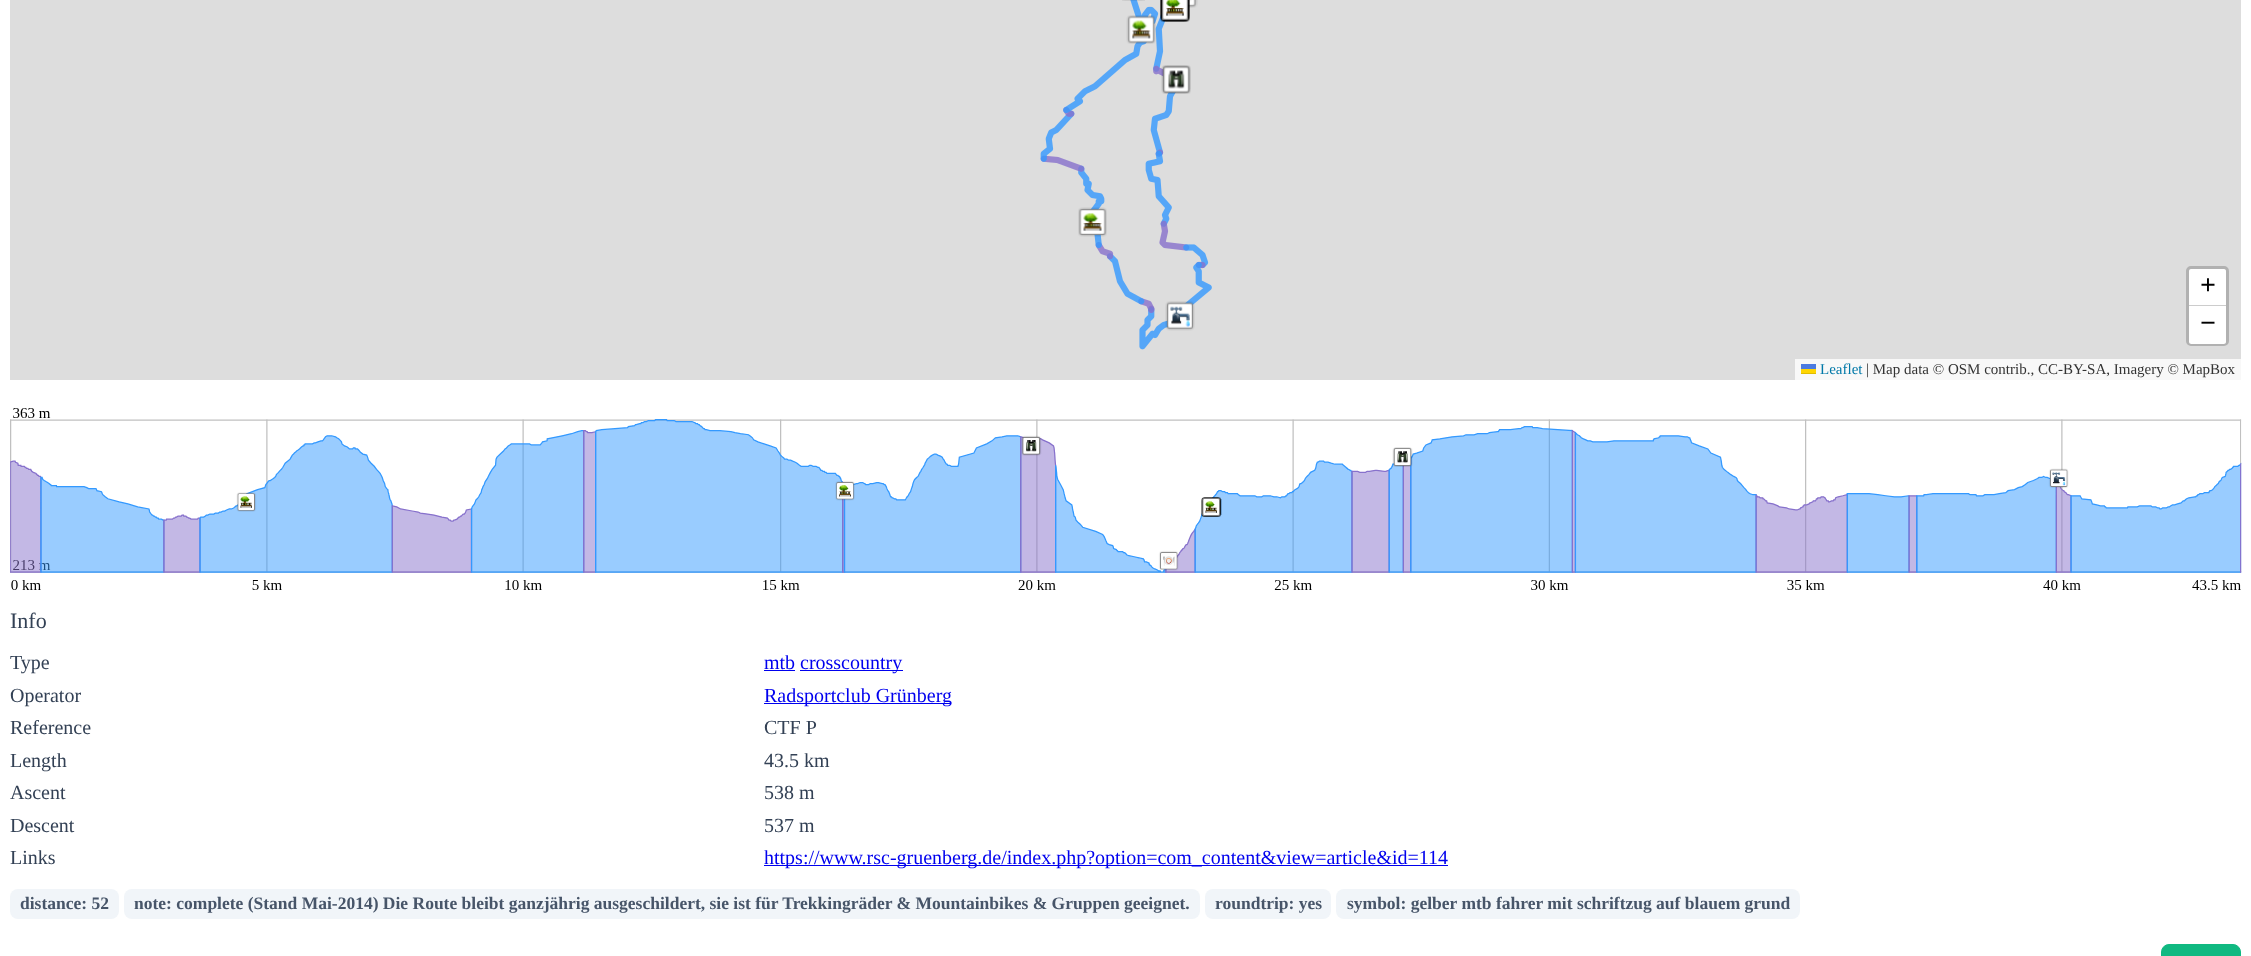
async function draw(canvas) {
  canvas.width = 2251
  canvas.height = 956
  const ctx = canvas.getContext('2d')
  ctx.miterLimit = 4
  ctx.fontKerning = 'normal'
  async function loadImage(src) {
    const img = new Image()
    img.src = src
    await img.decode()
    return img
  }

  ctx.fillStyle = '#fff'
  ctx.fillRect(0, 0, 2251, 956)
  ctx.fillStyle = '#ddd'
  ctx.fillRect(10, 0, 2231, 380)
  ctx.drawImage(await loadImage('image0.png'), 1040, 0, 172, 350)
  ctx.drawImage(await loadImage('image1.png'), 1122, 0, 23, 1)
  ctx.drawImage(await loadImage('image2.png'), 1122, 0, 23, 1)
  ctx.drawImage(await loadImage('image25.png'), 1187, 0, 11, 8)
  ctx.drawImage(await loadImage('image3.png'), 1160, 0, 30, 22)
  ctx.drawImage(await loadImage('image4.png'), 1160, 0, 30, 22)
  ctx.drawImage(await loadImage('image5.png'), 1160, 0, 30, 22)
  ctx.drawImage(await loadImage('image6.png'), 1160, 0, 30, 22)
  ctx.drawImage(await loadImage('image7.png'), 1160, 0, 30, 22)
  ctx.drawImage(await loadImage('image8.png'), 1160, 0, 30, 22)
  ctx.drawImage(await loadImage('image9.png'), 1160, 0, 30, 22)
  ctx.drawImage(await loadImage('image10.png'), 1160, 0, 30, 22)
  ctx.drawImage(await loadImage('image11.png'), 1160, 0, 30, 22)
  ctx.drawImage(await loadImage('image12.png'), 1160, 0, 30, 22)
  ctx.drawImage(await loadImage('image13.png'), 1160, 0, 30, 22)
  ctx.drawImage(await loadImage('image14.png'), 1160, 0, 30, 22)
  ctx.drawImage(await loadImage('image15.png'), 1160, 0, 30, 22)
  ctx.drawImage(await loadImage('image16.png'), 1160, 0, 30, 22)
  ctx.drawImage(await loadImage('image17.png'), 1160, 0, 30, 22)
  ctx.drawImage(await loadImage('image18.png'), 1160, 0, 30, 22)
  ctx.drawImage(await loadImage('image19.png'), 1160, 0, 30, 22)
  ctx.drawImage(await loadImage('image20.png'), 1160, 0, 30, 22)
  ctx.drawImage(await loadImage('image21.png'), 1160, 0, 30, 22)
  ctx.drawImage(await loadImage('image22.png'), 1160, 0, 30, 22)
  ctx.drawImage(await loadImage('image23.png'), 1160, 0, 30, 22)
  ctx.drawImage(await loadImage('image24.png'), 1161, 0, 29, 21)
  ctx.drawImage(await loadImage('image26.png'), 1126, 15, 30, 29)
  ctx.drawImage(await loadImage('image27.png'), 1161, 65, 30, 29)
  ctx.drawImage(await loadImage('image28.png'), 1161, 65, 30, 29)
  ctx.drawImage(await loadImage('image29.png'), 1078, 207, 29, 30)
  ctx.drawImage(await loadImage('image30.png'), 1165, 301, 30, 30)
  ctx.beginPath()
  ctx.roundRect(2187.5, 267.5, 40, 77, 3.5)
  ctx.strokeStyle = '#b1b1b1'
  ctx.lineWidth = 3
  ctx.stroke()
  ctx.fillStyle = '#fff'
  ctx.beginPath()
  ctx.roundRect(2189, 269, 37, 37, [2.5, 2.5, 0, 0])
  ctx.fill()
  ctx.fillStyle = '#ccc'
  ctx.fillRect(2189, 305, 37, 1)
  ctx.font = 'bold 28px Liberation Serif'
  ctx.fillStyle = '#000'
  ctx.fillText('+', 2200, 294)
  ctx.fillStyle = '#fff'
  ctx.beginPath()
  ctx.roundRect(2189, 306, 37, 38, [0, 0, 2.5, 2.5])
  ctx.fill()
  ctx.fillStyle = '#000'
  ctx.fillText('−', 2200, 332)
  ctx.fillStyle = '#f8f8f8'
  ctx.fillRect(1795, 359, 446, 21)
  ctx.font = '15px Liberation Serif'
  ctx.fillStyle = '#0078a8'
  ctx.fillText('Leaflet', 1820, 374)
  ctx.fillStyle = '#4c7be1'
  ctx.fillRect(1801, 364, 15, 5)
  ctx.fillStyle = '#ffd500'
  ctx.fillRect(1801, 369, 15, 4)
  ctx.fillStyle = '#e0bc00'
  ctx.fillRect(1801, 373, 15, 1)
  ctx.fillStyle = '#333'
  ctx.fillText('| Map data © OSM contrib., CC-BY-SA, Imagery © MapBox', 1866, 374)
  ctx.drawImage(await loadImage('image31.png'), 10, 408, 2232, 182)
  ctx.font = '22px Liberation Serif'
  ctx.fillStyle = '#334155'
  ctx.fillText('Info', 10, 628)
  ctx.font = '20px Liberation Serif'
  ctx.fillText('Type', 10, 669)
  ctx.fillStyle = '#00e'
  ctx.fillText('mtb', 764, 669)
  ctx.fillRect(764, 670, 31, 1)
  ctx.fillRect(800, 670, 103, 1)
  ctx.fillText('crosscountry', 800, 669)
  ctx.fillStyle = '#334155'
  ctx.fillText('Operator', 10, 702)
  ctx.fillStyle = '#00e'
  ctx.fillRect(764, 703, 187, 1)
  ctx.fillText('Radsportclub Grünberg', 764, 702)
  ctx.fillStyle = '#334155'
  ctx.fillText('Reference', 10, 734)
  ctx.fillText('CTF P', 764, 734)
  ctx.fillText('Length', 10, 767)
  ctx.fillText('43.5 km', 764, 767)
  ctx.fillText('Ascent', 10, 799)
  ctx.fillText('538 m', 764, 799)
  ctx.fillText('Descent', 10, 832)
  ctx.fillText('537 m', 764, 832)
  ctx.fillText('Links', 10, 864)
  ctx.fillStyle = '#00e'
  ctx.fillRect(764, 865, 684, 1)
  ctx.fillText('https://www.rsc-gruenberg.de/index.php?option=com_content&view=article&id=114', 764, 864)
  ctx.fillStyle = '#f1f5f9'
  ctx.beginPath()
  ctx.roundRect(10, 889, 109, 30, 8)
  ctx.fill()
  ctx.font = 'bold 17.5px Liberation Serif'
  ctx.fillStyle = '#475569'
  ctx.fillText('distance: 52', 20, 909)
  ctx.fillStyle = '#f1f5f9'
  ctx.beginPath()
  ctx.roundRect(124, 889, 1076, 30, 8)
  ctx.fill()
  ctx.fillStyle = '#475569'
  ctx.fillText('note: complete (Stand Mai-2014) Die Route bleibt ganzjährig ausgeschildert, sie ist für Trekkingräder & Mountainbikes & Gruppen geeignet.', 134, 909)
  ctx.fillStyle = '#f1f5f9'
  ctx.beginPath()
  ctx.roundRect(1205, 889, 126, 30, 8)
  ctx.fill()
  ctx.fillStyle = '#475569'
  ctx.fillText('roundtrip: yes', 1215, 909)
  ctx.fillStyle = '#f1f5f9'
  ctx.beginPath()
  ctx.roundRect(1336, 889, 464, 30, 8)
  ctx.fill()
  ctx.fillStyle = '#475569'
  ctx.fillText('symbol: gelber mtb fahrer mit schriftzug auf blauem grund', 1347, 909)
  ctx.fillStyle = '#10b981'
  ctx.beginPath()
  ctx.roundRect(2161.5, 944.5, 79, 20, 7.5)
  ctx.fill()
  ctx.strokeStyle = '#10b981'
  ctx.lineWidth = 1
  ctx.stroke()
}

draw(document.querySelector('canvas'))
